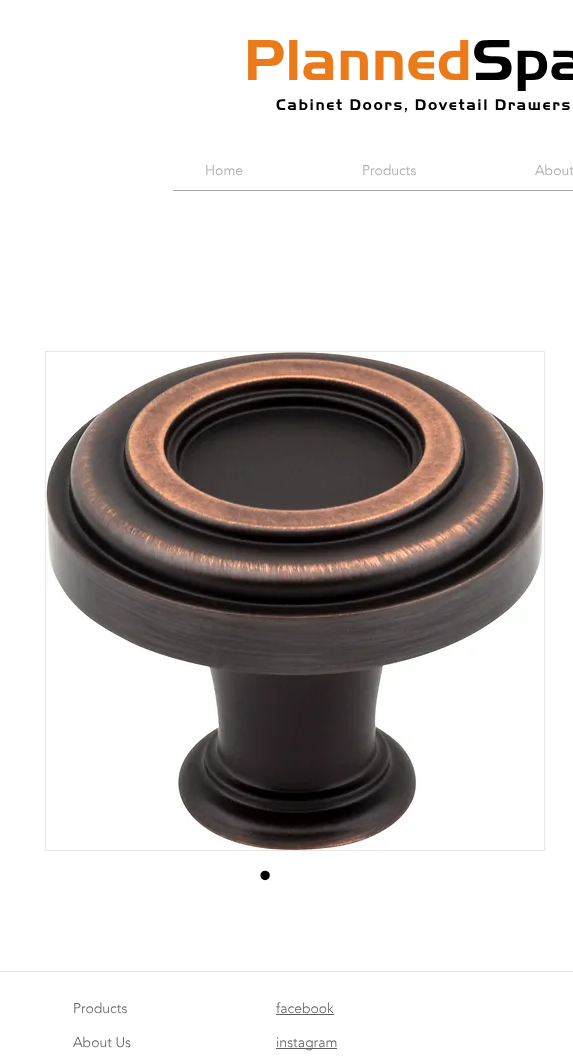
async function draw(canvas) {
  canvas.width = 573
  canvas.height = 1064
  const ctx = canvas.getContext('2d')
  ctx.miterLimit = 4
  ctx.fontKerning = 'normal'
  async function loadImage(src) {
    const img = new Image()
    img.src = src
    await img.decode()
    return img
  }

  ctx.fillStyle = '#fff'
  ctx.fillRect(0, 0, 573, 1064)
  ctx.font = '60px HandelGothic'
  ctx.fillStyle = '#eb7b1a'
  ctx.fillText('Planned', 244, 80)
  ctx.fillStyle = '#000'
  ctx.fillText('Spa', 472, 80)
  ctx.letterSpacing = '1.6px'
  ctx.font = '16px HandelGothic'
  ctx.fillText('Cabinet Doors, Dovetail Drawers', 276, 110)
  ctx.letterSpacing = '0px'
  ctx.font = '300 14px "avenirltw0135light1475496"'
  ctx.fillStyle = '#a6a6a6'
  ctx.fillText('Home', 205, 175)
  ctx.fillText('Products', 362, 175)
  ctx.fillText('About', 535, 175)
  ctx.fillRect(173, 190, 400, 1)
  ctx.strokeStyle = '#e8e6e6'
  ctx.strokeRect(45.5, 351.5, 499, 499)
  ctx.drawImage(await loadImage('image0.png'), 46, 352, 498, 498)
  ctx.font = '35px Liberation Sans'
  ctx.fillStyle = '#000'
  ctx.fillText('•', 259, 887)
  ctx.fillStyle = '#e8e6e6'
  ctx.fillRect(0, 971, 573, 1)
  ctx.font = '300 14px "avenirltw0135light1475496"'
  ctx.fillStyle = '#616060'
  ctx.fillText('Products', 73, 1013)
  ctx.fillText('About Us', 73, 1047)
  ctx.fillText('facebook', 276, 1013)
  ctx.fillRect(276, 1014, 58, 1)
  ctx.fillRect(276, 1048, 61, 1)
  ctx.fillText('instagram', 276, 1047)
}

draw(document.querySelector('canvas'))
